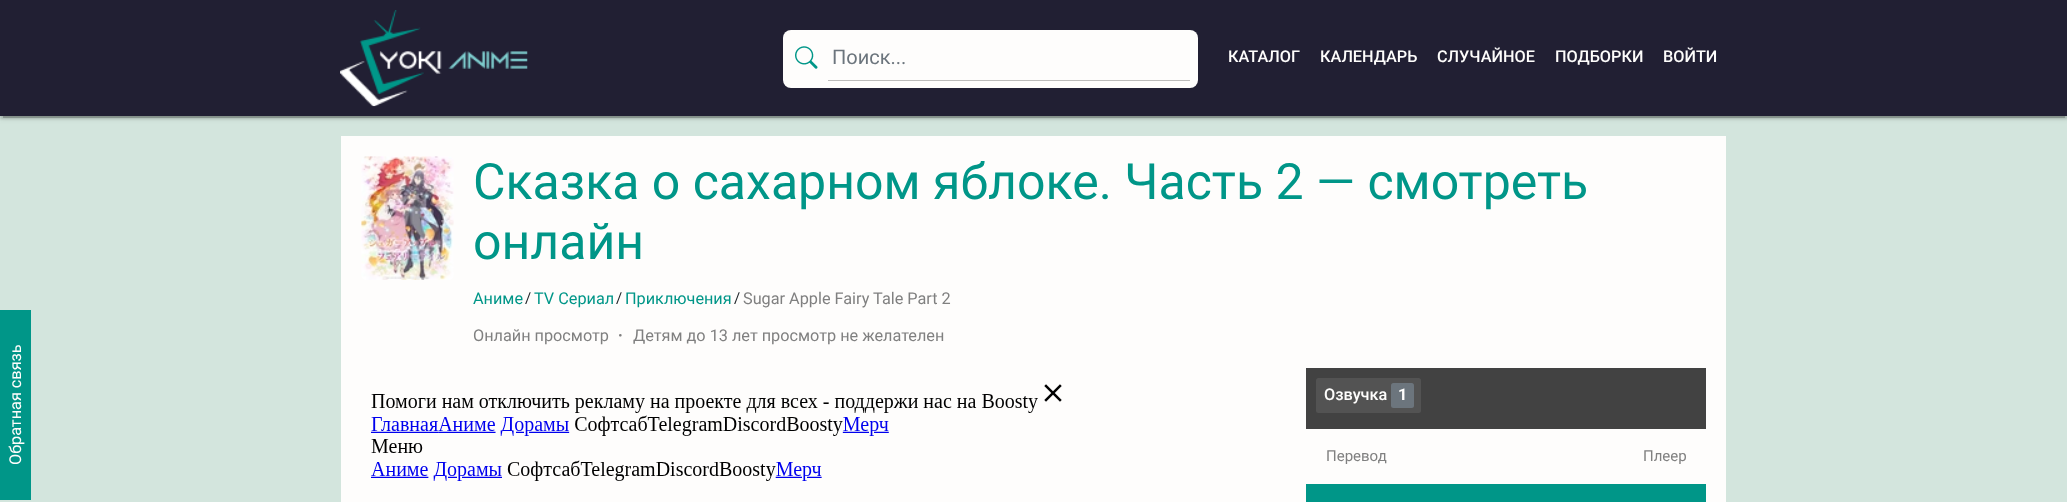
async function draw(canvas) {
  canvas.width = 2067
  canvas.height = 502
  const ctx = canvas.getContext('2d')
  ctx.miterLimit = 4
  ctx.fontKerning = 'normal'
  async function loadImage(src) {
    const img = new Image()
    img.src = src
    await img.decode()
    return img
  }

  ctx.fillStyle = '#d3e5dd'
  ctx.fillRect(0, 0, 2067, 502)
  ctx.fillStyle = '#009688'
  ctx.fillRect(0, 310, 31, 190)
  ctx.font = '16.25px Roboto'
  ctx.fillStyle = '#fefdfc'
  ctx.save()
  ctx.translate(21, 465)
  ctx.rotate(-90 * Math.PI / 180)
  ctx.fillText('Обратная связь', 0, 0)
  ctx.restore()
  ctx.fillStyle = '#0000001f'
  ctx.filter = 'blur(3px)'
  ctx.beginPath()
  ctx.rect(0, 1, 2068, 117)
  ctx.fill()
  ctx.filter = 'none'
  ctx.fillStyle = '#00000033'
  ctx.filter = 'blur(0.5px)'
  ctx.beginPath()
  ctx.rect(3, 6, 2062, 112)
  ctx.fill()
  ctx.filter = 'none'
  ctx.fillStyle = '#00000024'
  ctx.filter = 'blur(1px)'
  ctx.beginPath()
  ctx.rect(0, 3, 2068, 116)
  ctx.fill()
  ctx.filter = 'none'
  ctx.fillStyle = '#211f33'
  ctx.fillRect(0, 0, 2067, 116)
  ctx.drawImage(await loadImage('image0.png'), 340, 10, 188, 97)
  ctx.fillStyle = '#fefdfc'
  ctx.beginPath()
  ctx.roundRect(783, 30, 415, 58, 8)
  ctx.fill()
  ctx.drawImage(await loadImage('image1.png'), 795, 46, 23, 23)
  ctx.fillStyle = '#bcbbba'
  ctx.fillRect(828, 80, 362, 1)
  ctx.font = '20px Roboto'
  ctx.fillStyle = '#6c757d'
  ctx.fillText('Поиск...', 832, 64)
  ctx.font = '500 16.25px Roboto'
  ctx.fillStyle = '#fefdfc'
  ctx.fillText('КАТАЛОГ', 1228, 62)
  ctx.fillText('КАЛЕНДАРЬ', 1320, 62)
  ctx.fillText('СЛУЧАЙНОЕ', 1437, 62)
  ctx.fillText('ПОДБОРКИ', 1555, 62)
  ctx.fillText('ВОЙТИ', 1663, 62)
  ctx.fillRect(341, 136, 1385, 366)
  ctx.drawImage(await loadImage('image2.png'), 361, 156, 93, 124)
  ctx.font = '50px Roboto'
  ctx.fillStyle = '#009688'
  ctx.fillText('Сказка о сахарном яблоке. Часть 2 — смотреть', 473, 199)
  ctx.fillText('онлайн', 473, 259)
  ctx.font = '16.25px Roboto'
  ctx.fillText('Аниме', 473, 304)
  ctx.font = '15px Roboto'
  ctx.fillStyle = '#212529'
  ctx.fillText('/', 525, 303)
  ctx.font = '16.25px Roboto'
  ctx.fillStyle = '#009688'
  ctx.fillText('TV Сериал', 534, 304)
  ctx.font = '15px Roboto'
  ctx.fillStyle = '#212529'
  ctx.fillText('/', 616, 303)
  ctx.font = '16.25px Roboto'
  ctx.fillStyle = '#009688'
  ctx.fillText('Приключения', 625, 304)
  ctx.font = '15px Roboto'
  ctx.fillStyle = '#212529'
  ctx.fillText('/', 734, 303)
  ctx.font = '16.25px Roboto'
  ctx.fillStyle = '#808080'
  ctx.fillText('Sugar Apple Fairy Tale Part 2', 743, 304)
  ctx.fillText('Онлайн просмотр', 473, 341)
  ctx.font = '500 16.25px WenQuanYi Zen Hei'
  ctx.fillText('・', 612, 341)
  ctx.font = '16.25px Roboto'
  ctx.fillText('Детям до 13 лет просмотр не желателен', 633, 341)
  ctx.drawImage(await loadImage('image3.png'), 371, 384, 691, 97)
  ctx.fillStyle = '#424242'
  ctx.fillRect(1306, 368, 400, 61)
  ctx.fillStyle = '#535353'
  ctx.beginPath()
  ctx.roundRect(1316, 378, 105, 35, 2.5)
  ctx.fill()
  ctx.font = '500 16.25px Roboto'
  ctx.fillStyle = '#fefdfc'
  ctx.fillText('Озвучка', 1324, 400)
  ctx.fillStyle = '#6c757d'
  ctx.beginPath()
  ctx.roundRect(1391, 383, 23, 25, 2.5)
  ctx.fill()
  ctx.font = 'bold 16.25px Roboto'
  ctx.fillStyle = '#fefdfc'
  ctx.fillText('1', 1398, 400)
  ctx.font = '15px Roboto'
  ctx.fillStyle = '#808080'
  ctx.fillText('Перевод', 1326, 461)
  ctx.fillText('Плеер', 1643, 461)
  ctx.fillStyle = '#009688'
  ctx.fillRect(1306, 484, 400, 18)
}

draw(document.querySelector('canvas'))
